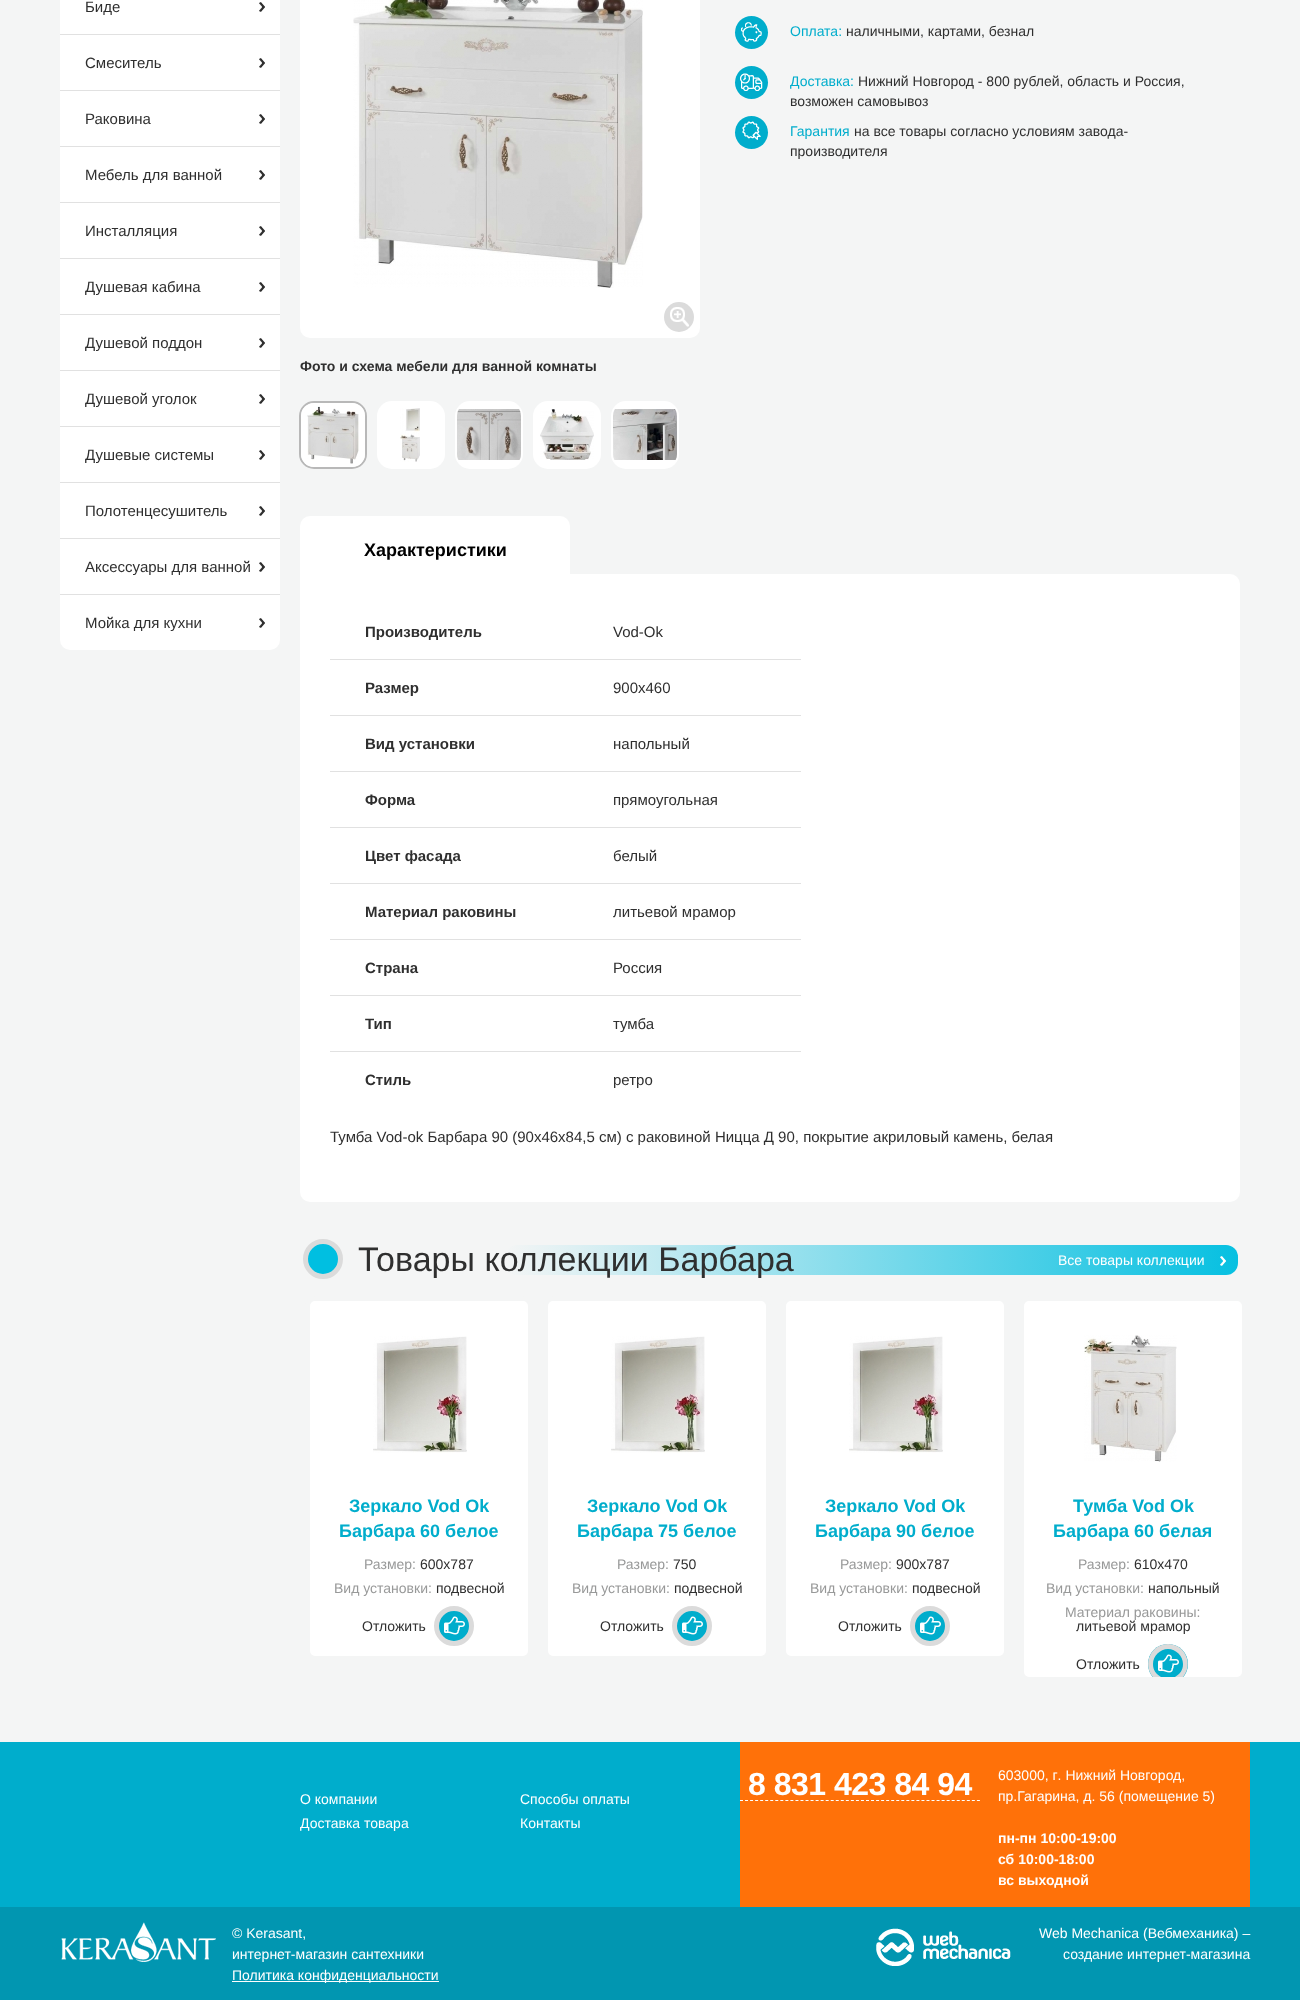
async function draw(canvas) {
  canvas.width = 1300
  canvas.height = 2000
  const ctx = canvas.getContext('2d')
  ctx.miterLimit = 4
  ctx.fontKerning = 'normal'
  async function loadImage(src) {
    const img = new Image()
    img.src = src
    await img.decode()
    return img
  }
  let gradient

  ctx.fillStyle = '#f4f5f5'
  ctx.fillRect(0, 0, 1300, 2000)
  ctx.fillStyle = '#fff'
  ctx.fillRect(60, 0, 220, 34)
  ctx.font = '15px Arimo'
  ctx.fillStyle = '#2f2f2f'
  ctx.fillText('Биде', 85, 12)
  ctx.drawImage(await loadImage('image0.png'), 259, 2, 6, 10)
  ctx.fillStyle = '#fff'
  ctx.fillRect(60, 35, 220, 55)
  ctx.fillStyle = '#e1e1e1'
  ctx.fillRect(60, 34, 220, 1)
  ctx.fillStyle = '#2f2f2f'
  ctx.fillText('Смеситель', 85, 68)
  ctx.drawImage(await loadImage('image0.png'), 259, 58, 6, 10)
  ctx.fillStyle = '#fff'
  ctx.fillRect(60, 91, 220, 55)
  ctx.fillStyle = '#e1e1e1'
  ctx.fillRect(60, 90, 220, 1)
  ctx.fillStyle = '#2f2f2f'
  ctx.fillText('Раковина', 85, 124)
  ctx.drawImage(await loadImage('image0.png'), 259, 114, 6, 10)
  ctx.fillStyle = '#fff'
  ctx.fillRect(60, 147, 220, 55)
  ctx.fillStyle = '#e1e1e1'
  ctx.fillRect(60, 146, 220, 1)
  ctx.fillStyle = '#2f2f2f'
  ctx.fillText('Мебель для ванной', 85, 180)
  ctx.drawImage(await loadImage('image0.png'), 259, 170, 6, 10)
  ctx.fillStyle = '#fff'
  ctx.fillRect(60, 203, 220, 55)
  ctx.fillStyle = '#e1e1e1'
  ctx.fillRect(60, 202, 220, 1)
  ctx.fillStyle = '#2f2f2f'
  ctx.fillText('Инсталляция', 85, 236)
  ctx.drawImage(await loadImage('image0.png'), 259, 226, 6, 10)
  ctx.fillStyle = '#fff'
  ctx.fillRect(60, 259, 220, 55)
  ctx.fillStyle = '#e1e1e1'
  ctx.fillRect(60, 258, 220, 1)
  ctx.fillStyle = '#2f2f2f'
  ctx.fillText('Душевая кабина', 85, 292)
  ctx.drawImage(await loadImage('image0.png'), 259, 282, 6, 10)
  ctx.fillStyle = '#fff'
  ctx.fillRect(60, 315, 220, 55)
  ctx.fillStyle = '#e1e1e1'
  ctx.fillRect(60, 314, 220, 1)
  ctx.fillStyle = '#2f2f2f'
  ctx.fillText('Душевой поддон', 85, 348)
  ctx.drawImage(await loadImage('image0.png'), 259, 338, 6, 10)
  ctx.fillStyle = '#fff'
  ctx.fillRect(60, 371, 220, 55)
  ctx.fillStyle = '#e1e1e1'
  ctx.fillRect(60, 370, 220, 1)
  ctx.fillStyle = '#2f2f2f'
  ctx.fillText('Душевой уголок', 85, 404)
  ctx.drawImage(await loadImage('image0.png'), 259, 394, 6, 10)
  ctx.fillStyle = '#fff'
  ctx.fillRect(60, 427, 220, 55)
  ctx.fillStyle = '#e1e1e1'
  ctx.fillRect(60, 426, 220, 1)
  ctx.fillStyle = '#2f2f2f'
  ctx.fillText('Душевые системы', 85, 460)
  ctx.drawImage(await loadImage('image0.png'), 259, 450, 6, 10)
  ctx.fillStyle = '#fff'
  ctx.fillRect(60, 483, 220, 55)
  ctx.fillStyle = '#e1e1e1'
  ctx.fillRect(60, 482, 220, 1)
  ctx.fillStyle = '#2f2f2f'
  ctx.fillText('Полотенцесушитель', 85, 516)
  ctx.drawImage(await loadImage('image0.png'), 259, 506, 6, 10)
  ctx.fillStyle = '#fff'
  ctx.fillRect(60, 539, 220, 55)
  ctx.fillStyle = '#e1e1e1'
  ctx.fillRect(60, 538, 220, 1)
  ctx.fillStyle = '#2f2f2f'
  ctx.fillText('Аксессуары для ванной', 85, 572)
  ctx.drawImage(await loadImage('image0.png'), 259, 562, 6, 10)
  ctx.fillStyle = '#fff'
  ctx.beginPath()
  ctx.roundRect(60, 594, 220, 56, [0, 0, 10, 10])
  ctx.fill()
  ctx.fillStyle = '#e1e1e1'
  ctx.fillRect(60, 594, 220, 1)
  ctx.fillStyle = '#2f2f2f'
  ctx.fillText('Мойка для кухни', 85, 628)
  ctx.drawImage(await loadImage('image0.png'), 259, 618, 6, 10)
  ctx.fillStyle = '#00adcc'
  ctx.beginPath()
  ctx.arc(751.5, 32.5, 16.5, 0, 2 * Math.PI)
  ctx.fill()
  ctx.drawImage(await loadImage('image1.png'), 741, 22, 21, 20)
  ctx.font = '14px Arimo'
  ctx.fillText('Оплата:', 790, 36)
  ctx.fillStyle = '#2f2f2f'
  ctx.fillText('наличными, картами, безнал', 846, 36)
  ctx.fillStyle = '#00adcc'
  ctx.beginPath()
  ctx.arc(751.5, 82.5, 16.5, 0, 2 * Math.PI)
  ctx.fill()
  ctx.drawImage(await loadImage('image2.png'), 740, 73, 23, 18)
  ctx.fillText('Доставка:', 790, 86)
  ctx.fillStyle = '#2f2f2f'
  ctx.fillText('Нижний Новгород - 800 рублей, область и Россия,', 858, 86)
  ctx.fillText('возможен самовывоз', 790, 106)
  ctx.fillStyle = '#00adcc'
  ctx.beginPath()
  ctx.arc(751.5, 132.5, 16.5, 0, 2 * Math.PI)
  ctx.fill()
  ctx.drawImage(await loadImage('image3.png'), 742, 121, 19, 19)
  ctx.fillText('Гарантия', 790, 136)
  ctx.fillStyle = '#2f2f2f'
  ctx.fillText('на все товары согласно условиям завода-', 854, 136)
  ctx.fillText('производителя', 790, 156)
  ctx.fillStyle = '#fff'
  ctx.beginPath()
  ctx.roundRect(300, -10, 400, 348, 10)
  ctx.fill()
  ctx.drawImage(await loadImage('image4.png'), 353, 0, 290, 288)
  ctx.fillStyle = '#dbdbdb'
  ctx.beginPath()
  ctx.arc(679, 317, 15, 0, 2 * Math.PI)
  ctx.fill()
  ctx.drawImage(await loadImage('image5.png'), 670, 307, 19, 20)
  ctx.font = 'bold 14px Arimo'
  ctx.fillStyle = '#2f2f2f'
  ctx.fillText('Фото и схема мебели для ванной комнаты', 300, 371)
  ctx.beginPath()
  ctx.roundRect(300, 402, 66, 66, 14)
  ctx.strokeStyle = '#b8b8b8'
  ctx.lineWidth = 2
  ctx.stroke()
  ctx.drawImage(await loadImage('image6.png'), 301, 403, 64, 64)
  ctx.fillStyle = '#fff'
  ctx.beginPath()
  ctx.roundRect(377, 401, 68, 68, 15)
  ctx.fill()
  ctx.drawImage(await loadImage('image7.png'), 400, 408, 20, 54)
  ctx.beginPath()
  ctx.roundRect(455, 401, 68, 68, 15)
  ctx.fill()
  ctx.drawImage(await loadImage('image8.png'), 457, 409, 64, 51)
  ctx.beginPath()
  ctx.roundRect(533, 401, 68, 68, 15)
  ctx.fill()
  ctx.drawImage(await loadImage('image9.png'), 540, 409, 54, 51)
  ctx.beginPath()
  ctx.roundRect(611, 401, 68, 68, 15)
  ctx.fill()
  ctx.drawImage(await loadImage('image10.png'), 613, 409, 64, 51)
  ctx.beginPath()
  ctx.roundRect(300, 516, 270, 58, [10, 10, 0, 0])
  ctx.fill()
  ctx.font = 'bold 18px Arimo'
  ctx.fillStyle = '#000'
  ctx.fillText('Характеристики', 364, 556)
  ctx.fillStyle = '#fff'
  ctx.beginPath()
  ctx.roundRect(300, 574, 940, 628, [0, 10, 10, 10])
  ctx.fill()
  ctx.fillStyle = '#e1e1e1'
  ctx.fillRect(330, 659, 471, 1)
  ctx.font = 'bold 15px Arimo'
  ctx.fillStyle = '#2f2f2f'
  ctx.fillText('Производитель', 365, 637)
  ctx.font = '15px Arimo'
  ctx.fillText('Vod-Ok', 613, 637)
  ctx.fillStyle = '#e1e1e1'
  ctx.fillRect(330, 715, 471, 1)
  ctx.font = 'bold 15px Arimo'
  ctx.fillStyle = '#2f2f2f'
  ctx.fillText('Размер', 365, 693)
  ctx.font = '15px Arimo'
  ctx.fillText('900х460', 613, 693)
  ctx.fillStyle = '#e1e1e1'
  ctx.fillRect(330, 771, 471, 1)
  ctx.font = 'bold 15px Arimo'
  ctx.fillStyle = '#2f2f2f'
  ctx.fillText('Вид установки', 365, 749)
  ctx.font = '15px Arimo'
  ctx.fillText('напольный', 613, 749)
  ctx.fillStyle = '#e1e1e1'
  ctx.fillRect(330, 827, 471, 1)
  ctx.font = 'bold 15px Arimo'
  ctx.fillStyle = '#2f2f2f'
  ctx.fillText('Форма', 365, 805)
  ctx.font = '15px Arimo'
  ctx.fillText('прямоугольная', 613, 805)
  ctx.fillStyle = '#e1e1e1'
  ctx.fillRect(330, 883, 471, 1)
  ctx.font = 'bold 15px Arimo'
  ctx.fillStyle = '#2f2f2f'
  ctx.fillText('Цвет фасада', 365, 861)
  ctx.font = '15px Arimo'
  ctx.fillText('белый', 613, 861)
  ctx.fillStyle = '#e1e1e1'
  ctx.fillRect(330, 939, 471, 1)
  ctx.font = 'bold 15px Arimo'
  ctx.fillStyle = '#2f2f2f'
  ctx.fillText('Материал раковины', 365, 917)
  ctx.font = '15px Arimo'
  ctx.fillText('литьевой мрамор', 613, 917)
  ctx.fillStyle = '#e1e1e1'
  ctx.fillRect(330, 995, 471, 1)
  ctx.font = 'bold 15px Arimo'
  ctx.fillStyle = '#2f2f2f'
  ctx.fillText('Страна', 365, 973)
  ctx.font = '15px Arimo'
  ctx.fillText('Россия', 613, 973)
  ctx.fillStyle = '#e1e1e1'
  ctx.fillRect(330, 1051, 471, 1)
  ctx.font = 'bold 15px Arimo'
  ctx.fillStyle = '#2f2f2f'
  ctx.fillText('Тип', 365, 1029)
  ctx.font = '15px Arimo'
  ctx.fillText('тумба', 613, 1029)
  ctx.font = 'bold 15px Arimo'
  ctx.fillText('Стиль', 365, 1085)
  ctx.font = '15px Arimo'
  ctx.fillText('ретро', 613, 1085)
  ctx.fillText('Тумба Vod-ok Барбара 90 (90х46х84,5 см) с раковиной Ницца Д 90, покрытие акриловый камень, белая', 330, 1142)
  ctx.fillStyle = '#00bfe1'
  ctx.beginPath()
  ctx.arc(323, 1259, 17.5, 0, 2 * Math.PI)
  ctx.fill()
  ctx.strokeStyle = '#dbdbdb'
  ctx.lineWidth = 5
  ctx.stroke()
  gradient = ctx.createLinearGradient(505, 1260, 1238, 1260)
  gradient.addColorStop(0, '#f4f5f5')
  gradient.addColorStop(1, '#06c0e1')
  ctx.fillStyle = gradient
  ctx.beginPath()
  ctx.roundRect(505, 1245, 733, 30, 12)
  ctx.fill()
  ctx.font = '34px Arimo'
  ctx.fillStyle = '#2f2f2f'
  ctx.fillText('Товары коллекции Барбара', 358, 1271)
  ctx.font = '14px Arimo'
  ctx.fillStyle = '#fff'
  ctx.fillText('Все товары коллекции', 1058, 1265)
  ctx.drawImage(await loadImage('image11.png'), 1220, 1256, 6, 10)
  ctx.beginPath()
  ctx.roundRect(307.5, 1298.5, 223, 360, 7.5)
  ctx.fill()
  ctx.strokeStyle = '#f4f5f5'
  ctx.stroke()
  ctx.drawImage(await loadImage('image12.png'), 373, 1336, 94, 117)
  ctx.font = 'bold 18px Arimo'
  ctx.fillStyle = '#00adcc'
  ctx.fillText('Зеркало Vod Ok', 349, 1512)
  ctx.fillText('Барбара 60 белое', 339, 1537)
  ctx.font = '14px Arimo'
  ctx.fillStyle = '#989999'
  ctx.fillText('Размер:', 364, 1569)
  ctx.fillStyle = '#2f2f2f'
  ctx.fillText('600х787', 420, 1569)
  ctx.fillStyle = '#989999'
  ctx.fillText('Вид установки:', 334, 1593)
  ctx.fillStyle = '#2f2f2f'
  ctx.fillText('подвесной', 436, 1593)
  ctx.fillText('Отложить', 362, 1631)
  ctx.fillStyle = '#00adcc'
  ctx.beginPath()
  ctx.arc(454, 1626, 17.5, 0, 2 * Math.PI)
  ctx.fill()
  ctx.strokeStyle = '#dbdbdb'
  ctx.stroke()
  ctx.drawImage(await loadImage('image13.png'), 444, 1616, 21, 19)
  ctx.fillStyle = '#fff'
  ctx.beginPath()
  ctx.roundRect(545.5, 1298.5, 223, 360, 7.5)
  ctx.fill()
  ctx.strokeStyle = '#f4f5f5'
  ctx.stroke()
  ctx.drawImage(await loadImage('image12.png'), 611, 1336, 94, 117)
  ctx.font = 'bold 18px Arimo'
  ctx.fillStyle = '#00adcc'
  ctx.fillText('Зеркало Vod Ok', 587, 1512)
  ctx.fillText('Барбара 75 белое', 577, 1537)
  ctx.font = '14px Arimo'
  ctx.fillStyle = '#989999'
  ctx.fillText('Размер:', 617, 1569)
  ctx.fillStyle = '#2f2f2f'
  ctx.fillText('750', 673, 1569)
  ctx.fillStyle = '#989999'
  ctx.fillText('Вид установки:', 572, 1593)
  ctx.fillStyle = '#2f2f2f'
  ctx.fillText('подвесной', 674, 1593)
  ctx.fillText('Отложить', 600, 1631)
  ctx.fillStyle = '#00adcc'
  ctx.beginPath()
  ctx.arc(692, 1626, 17.5, 0, 2 * Math.PI)
  ctx.fill()
  ctx.strokeStyle = '#dbdbdb'
  ctx.stroke()
  ctx.drawImage(await loadImage('image13.png'), 682, 1616, 21, 19)
  ctx.fillStyle = '#fff'
  ctx.beginPath()
  ctx.roundRect(783.5, 1298.5, 223, 360, 7.5)
  ctx.fill()
  ctx.strokeStyle = '#f4f5f5'
  ctx.stroke()
  ctx.drawImage(await loadImage('image12.png'), 849, 1336, 94, 117)
  ctx.font = 'bold 18px Arimo'
  ctx.fillStyle = '#00adcc'
  ctx.fillText('Зеркало Vod Ok', 825, 1512)
  ctx.fillText('Барбара 90 белое', 815, 1537)
  ctx.font = '14px Arimo'
  ctx.fillStyle = '#989999'
  ctx.fillText('Размер:', 840, 1569)
  ctx.fillStyle = '#2f2f2f'
  ctx.fillText('900х787', 896, 1569)
  ctx.fillStyle = '#989999'
  ctx.fillText('Вид установки:', 810, 1593)
  ctx.fillStyle = '#2f2f2f'
  ctx.fillText('подвесной', 912, 1593)
  ctx.fillText('Отложить', 838, 1631)
  ctx.fillStyle = '#00adcc'
  ctx.beginPath()
  ctx.arc(930, 1626, 17.5, 0, 2 * Math.PI)
  ctx.fill()
  ctx.strokeStyle = '#dbdbdb'
  ctx.stroke()
  ctx.drawImage(await loadImage('image13.png'), 920, 1616, 21, 19)
  ctx.fillStyle = '#fff'
  ctx.beginPath()
  ctx.roundRect(1021.5, 1298.5, 223, 381, 7.5)
  ctx.fill()
  ctx.strokeStyle = '#f4f5f5'
  ctx.stroke()
  ctx.drawImage(await loadImage('image14.png'), 1084, 1335, 93, 127)
  ctx.font = 'bold 18px Arimo'
  ctx.fillStyle = '#00adcc'
  ctx.fillText('Тумба Vod Ok', 1073, 1512)
  ctx.fillText('Барбара 60 белая', 1053, 1537)
  ctx.font = '14px Arimo'
  ctx.fillStyle = '#989999'
  ctx.fillText('Размер:', 1078, 1569)
  ctx.fillStyle = '#2f2f2f'
  ctx.fillText('610х470', 1134, 1569)
  ctx.fillStyle = '#989999'
  ctx.fillText('Вид установки:', 1046, 1593)
  ctx.fillStyle = '#2f2f2f'
  ctx.fillText('напольный', 1148, 1593)
  ctx.fillStyle = '#989999'
  ctx.fillText('Материал раковины:', 1065, 1617)
  ctx.fillStyle = '#2f2f2f'
  ctx.fillText('литьевой мрамор', 1076, 1631)
  ctx.fillText('Отложить', 1076, 1669)
  ctx.save()
  ctx.beginPath()
  ctx.roundRect(1024, 1301, 218, 376, 5)
  ctx.clip()
  ctx.fillStyle = '#00adcc'
  ctx.beginPath()
  ctx.arc(1168, 1664, 20, 0, 2 * Math.PI)
  ctx.fill()
  ctx.restore()
  ctx.fillStyle = '#dbdbdb'
  ctx.beginPath()
  ctx.moveTo(1168, 1644)
  ctx.bezierCurveTo(1151, 1644, 1142, 1664, 1153, 1677)
  ctx.lineTo(1161, 1677)
  ctx.bezierCurveTo(1156, 1674, 1153, 1670, 1153, 1664)
  ctx.bezierCurveTo(1153, 1656, 1160, 1649, 1168, 1649)
  ctx.bezierCurveTo(1176, 1649, 1183, 1656, 1183, 1664)
  ctx.bezierCurveTo(1183, 1670, 1180, 1674, 1175, 1677)
  ctx.lineTo(1183, 1677)
  ctx.bezierCurveTo(1194, 1664, 1185, 1644, 1168, 1644)
  ctx.closePath()
  ctx.fill()
  ctx.drawImage(await loadImage('image15.png'), 1158, 1654, 21, 19)
  ctx.fillStyle = '#00adcc'
  ctx.fillRect(0, 1742, 1300, 165)
  ctx.fillStyle = '#fff'
  ctx.fillText('О компании', 300, 1804)
  ctx.fillText('Доставка товара', 300, 1828)
  ctx.fillText('Способы оплаты', 520, 1804)
  ctx.fillText('Контакты', 520, 1828)
  ctx.fillStyle = '#ff7109'
  ctx.fillRect(740, 1742, 510, 165)
  ctx.beginPath()
  ctx.moveTo(740, 1800.5)
  ctx.lineTo(980, 1800.5)
  ctx.strokeStyle = '#fff'
  ctx.lineWidth = 1
  ctx.setLineDash([3, 2.04])
  ctx.stroke()
  ctx.letterSpacing = '-0.5px'
  ctx.font = 'bold 32px Arimo'
  ctx.fillStyle = '#fff'
  ctx.fillText('8 831 423 84 94', 748, 1795)
  ctx.letterSpacing = '0px'
  ctx.font = '14px Arimo'
  ctx.fillText('603000, г. Нижний Новгород,', 998, 1780)
  ctx.fillText('пр.Гагарина, д. 56 (помещение 5)', 998, 1801)
  ctx.font = 'bold 14px Arimo'
  ctx.fillText('пн-пн 10:00-19:00', 998, 1843)
  ctx.fillText('сб 10:00-18:00', 998, 1864)
  ctx.fillText('вс выходной', 998, 1885)
  ctx.fillStyle = '#0196b1'
  ctx.fillRect(0, 1907, 1300, 93)
  ctx.drawImage(await loadImage('image16.png'), 61, 1922, 155, 40)
  ctx.font = '14px Arimo'
  ctx.fillStyle = '#fff'
  ctx.fillText('© Kerasant,', 232, 1938)
  ctx.fillText('интернет-магазин сантехники', 232, 1959)
  ctx.fillRect(232, 1981, 207, 1)
  ctx.fillText('Политика конфиденциальности', 232, 1980)
  ctx.drawImage(await loadImage('image17.png'), 876, 1928, 135, 38)
  ctx.fillText('Web Mechanica (Вебмеханика) –', 1039, 1938)
  ctx.fillText('создание интернет-магазина', 1063, 1959)
}

draw(document.querySelector('canvas'))
